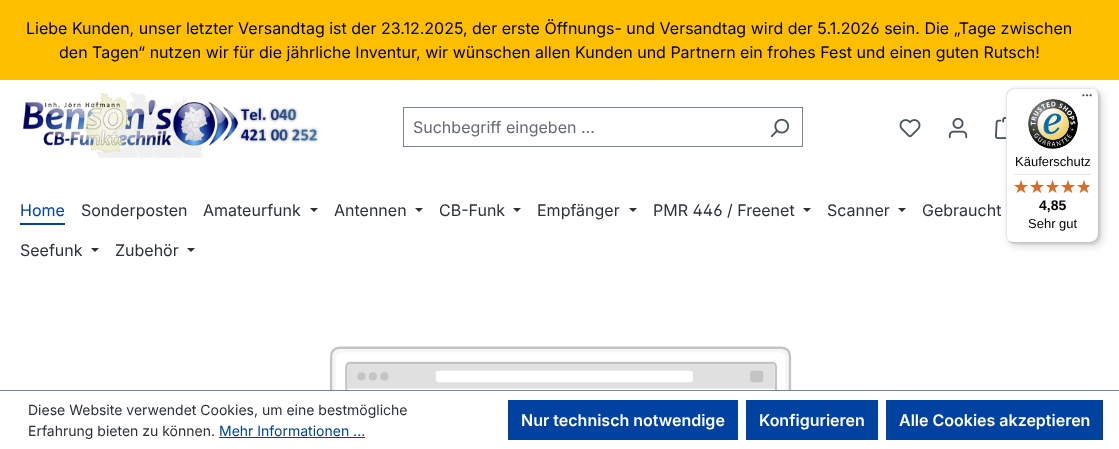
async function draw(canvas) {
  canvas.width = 1119
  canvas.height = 449
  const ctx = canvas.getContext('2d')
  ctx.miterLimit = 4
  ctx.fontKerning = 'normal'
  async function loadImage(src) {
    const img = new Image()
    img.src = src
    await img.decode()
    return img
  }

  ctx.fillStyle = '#fff'
  ctx.fillRect(0, 0, 1119, 449)
  ctx.fillStyle = '#ffbf00'
  ctx.fillRect(0, 0, 1119, 80)
  ctx.font = '16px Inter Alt'
  ctx.fillStyle = '#000'
  ctx.fillText('Liebe Kunden, unser letzter Versandtag ist der 23.12.2025, der erste Öffnungs- und Versandtag wird der 5.1.2026 sein. Die „Tage zwischen', 26, 34)
  ctx.font = '16px Inter'
  ctx.fillText('den Tagen“ nutzen wir für die jährliche Inventur, wir wünschen allen Kunden und Partnern ein frohes Fest und einen guten Rutsch!', 59, 58)
  ctx.drawImage(await loadImage('image0.png'), 22, 92, 297, 66)
  ctx.fillStyle = '#798490'
  ctx.fillRect(403, 107, 400, 1)
  ctx.fillRect(403, 146, 354, 1)
  ctx.fillRect(403, 107, 1, 40)
  ctx.fillStyle = '#666977'
  ctx.fillText('Suchbegriff eingeben ...', 413, 133)
  ctx.fillStyle = '#798490'
  ctx.fillRect(802, 107, 1, 40)
  ctx.fillRect(756, 146, 47, 1)
  ctx.drawImage(await loadImage('image1.png'), 770, 118, 20, 20)
  ctx.drawImage(await loadImage('image2.png'), 899, 119, 22, 19)
  ctx.drawImage(await loadImage('image3.png'), 948, 117, 20, 22)
  ctx.drawImage(await loadImage('image4.png'), 995, 117, 11, 22)
  ctx.fillStyle = '#0042a0'
  ctx.fillText('Home', 20, 216)
  ctx.fillRect(20, 223, 45, 2)
  ctx.fillStyle = '#2b3136'
  ctx.fillText('Sonderposten', 81, 216)
  ctx.fillText('Amateurfunk', 203, 216)
  ctx.beginPath()
  ctx.moveTo(310, 208)
  ctx.lineTo(318, 208)
  ctx.lineTo(314, 212)
  ctx.closePath()
  ctx.fill()
  ctx.fillText('Antennen', 334, 216)
  ctx.beginPath()
  ctx.moveTo(415, 208)
  ctx.lineTo(423, 208)
  ctx.lineTo(419, 212)
  ctx.closePath()
  ctx.fill()
  ctx.fillText('CB-Funk', 439, 216)
  ctx.beginPath()
  ctx.moveTo(513, 208)
  ctx.lineTo(521, 208)
  ctx.lineTo(517, 212)
  ctx.closePath()
  ctx.fill()
  ctx.fillText('Empfänger', 537, 216)
  ctx.beginPath()
  ctx.moveTo(629, 208)
  ctx.lineTo(637, 208)
  ctx.lineTo(633, 212)
  ctx.closePath()
  ctx.fill()
  ctx.font = '16px Inter Alt'
  ctx.fillText('PMR 446 / Freenet', 653, 216)
  ctx.beginPath()
  ctx.moveTo(803, 208)
  ctx.lineTo(811, 208)
  ctx.lineTo(807, 212)
  ctx.closePath()
  ctx.fill()
  ctx.font = '16px Inter'
  ctx.fillText('Scanner', 827, 216)
  ctx.beginPath()
  ctx.moveTo(898, 208)
  ctx.lineTo(906, 208)
  ctx.lineTo(902, 212)
  ctx.closePath()
  ctx.fill()
  ctx.fillText('Gebraucht', 922, 216)
  ctx.fillText('Seefunk', 20, 256)
  ctx.beginPath()
  ctx.moveTo(91, 248)
  ctx.lineTo(99, 248)
  ctx.lineTo(95, 252)
  ctx.closePath()
  ctx.fill()
  ctx.fillText('Zubehör', 115, 256)
  ctx.beginPath()
  ctx.moveTo(187, 248)
  ctx.lineTo(195, 248)
  ctx.lineTo(191, 252)
  ctx.closePath()
  ctx.fill()
  ctx.fillStyle = '#00000026'
  ctx.filter = 'blur(4px)'
  ctx.beginPath()
  ctx.roundRect(1009, 91, 93, 155, 8)
  ctx.fill()
  ctx.filter = 'none'
  ctx.filter = 'blur(1px)'
  ctx.beginPath()
  ctx.roundRect(1007, 89, 93, 155, 8)
  ctx.fill()
  ctx.filter = 'none'
  ctx.fillStyle = '#fff'
  ctx.beginPath()
  ctx.roundRect(1006, 88, 93, 155, 8)
  ctx.fill()
  ctx.fillStyle = '#e5e5e5'
  ctx.beginPath()
  ctx.moveTo(1015, 89)
  ctx.lineTo(1092, 89)
  ctx.bezierCurveTo(1094, 89, 1096, 90, 1098, 92)
  ctx.bezierCurveTo(1096, 90, 1094, 88, 1091, 88)
  ctx.lineTo(1014, 88)
  ctx.bezierCurveTo(1010, 88, 1006, 92, 1006, 96)
  ctx.lineTo(1006, 235)
  ctx.bezierCurveTo(1006, 238, 1008, 240, 1010, 242)
  ctx.bezierCurveTo(1008, 240, 1007, 238, 1007, 236)
  ctx.lineTo(1007, 97)
  ctx.bezierCurveTo(1007, 93, 1011, 89, 1015, 89)
  ctx.closePath()
  ctx.fill()
  ctx.fillStyle = '#ccc'
  ctx.beginPath()
  ctx.moveTo(1007, 239)
  ctx.bezierCurveTo(1009, 241, 1011, 243, 1014, 243)
  ctx.lineTo(1091, 243)
  ctx.bezierCurveTo(1095, 243, 1099, 239, 1099, 235)
  ctx.lineTo(1099, 96)
  ctx.bezierCurveTo(1099, 93, 1097, 91, 1095, 89)
  ctx.bezierCurveTo(1097, 91, 1098, 93, 1098, 95)
  ctx.lineTo(1098, 234)
  ctx.bezierCurveTo(1098, 238, 1094, 242, 1090, 242)
  ctx.lineTo(1013, 242)
  ctx.bezierCurveTo(1011, 242, 1009, 241, 1007, 239)
  ctx.closePath()
  ctx.fill()
  ctx.fillStyle = '#32323233'
  ctx.beginPath()
  ctx.moveTo(1008, 240)
  ctx.bezierCurveTo(1009, 242, 1012, 243, 1014, 243)
  ctx.lineTo(1091, 243)
  ctx.bezierCurveTo(1095, 243, 1099, 239, 1099, 235)
  ctx.lineTo(1099, 96)
  ctx.bezierCurveTo(1099, 94, 1098, 91, 1096, 90)
  ctx.bezierCurveTo(1097, 91, 1098, 93, 1098, 95)
  ctx.lineTo(1098, 234)
  ctx.bezierCurveTo(1098, 239, 1095, 242, 1090, 242)
  ctx.lineTo(1013, 242)
  ctx.bezierCurveTo(1011, 242, 1009, 241, 1008, 240)
  ctx.closePath()
  ctx.fill()
  ctx.fillStyle = '#ffffff4d'
  ctx.beginPath()
  ctx.moveTo(1098, 96)
  ctx.bezierCurveTo(1098, 91, 1095, 88, 1090, 88)
  ctx.lineTo(1091, 88)
  ctx.bezierCurveTo(1095, 88, 1099, 92, 1099, 96)
  ctx.lineTo(1099, 235)
  ctx.bezierCurveTo(1099, 239, 1095, 243, 1091, 243)
  ctx.lineTo(1014, 243)
  ctx.bezierCurveTo(1010, 243, 1006, 239, 1006, 235)
  ctx.lineTo(1006, 234)
  ctx.bezierCurveTo(1006, 239, 1009, 242, 1014, 242)
  ctx.lineTo(1090, 242)
  ctx.bezierCurveTo(1095, 242, 1098, 239, 1098, 234)
  ctx.closePath()
  ctx.fill()
  ctx.drawImage(await loadImage('image5.png'), 1082, 94, 10, 3)
  ctx.drawImage(await loadImage('image6.png'), 1028, 99, 50, 50)
  ctx.font = '13px Liberation Sans'
  ctx.fillStyle = '#000'
  ctx.fillText('Käuferschutz', 1015, 166)
  ctx.fillStyle = '#e5e5e5'
  ctx.fillRect(1014, 174, 77, 1)
  ctx.drawImage(await loadImage('image7.png'), 1014, 180, 14, 13)
  ctx.drawImage(await loadImage('image7.png'), 1030, 180, 14, 13)
  ctx.drawImage(await loadImage('image8.png'), 1046, 180, 13, 13)
  ctx.drawImage(await loadImage('image7.png'), 1061, 180, 14, 13)
  ctx.drawImage(await loadImage('image7.png'), 1077, 180, 14, 13)
  ctx.drawImage(await loadImage('image9.png'), 1014, 180, 14, 13)
  ctx.drawImage(await loadImage('image9.png'), 1030, 180, 14, 13)
  ctx.drawImage(await loadImage('image10.png'), 1046, 180, 13, 13)
  ctx.drawImage(await loadImage('image9.png'), 1061, 180, 14, 13)
  ctx.drawImage(await loadImage('image11.png'), 1077, 180, 12, 13)
  ctx.font = 'bold 14px Liberation Sans'
  ctx.fillStyle = '#000'
  ctx.fillText('4,85', 1039, 210)
  ctx.font = '13px Liberation Sans'
  ctx.fillText('Sehr gut', 1028, 228)
  ctx.drawImage(await loadImage('image12.png'), 329, 346, 463, 44)
  ctx.fillStyle = '#798490'
  ctx.fillRect(0, 390, 1119, 1)
  ctx.font = '14px Inter'
  ctx.fillStyle = '#2b3136'
  ctx.fillText('Diese Website verwendet Cookies, um eine bestmögliche', 28, 415)
  ctx.fillText('Erfahrung bieten zu können.', 28, 436)
  ctx.fillStyle = '#0042a0'
  ctx.fillText('Mehr Informationen ...', 219, 436)
  ctx.fillRect(219, 437, 146, 1)
  ctx.fillRect(508, 400, 230, 40)
  ctx.font = '600 16px Inter'
  ctx.fillStyle = '#fff'
  ctx.fillText('Nur technisch notwendige', 521, 426)
  ctx.fillStyle = '#0042a0'
  ctx.fillRect(746, 400, 132, 40)
  ctx.fillStyle = '#fff'
  ctx.fillText('Konfigurieren', 759, 426)
  ctx.fillStyle = '#0042a0'
  ctx.fillRect(886, 400, 217, 40)
  ctx.fillStyle = '#fff'
  ctx.fillText('Alle Cookies akzeptieren', 899, 426)
}

draw(document.querySelector('canvas'))
